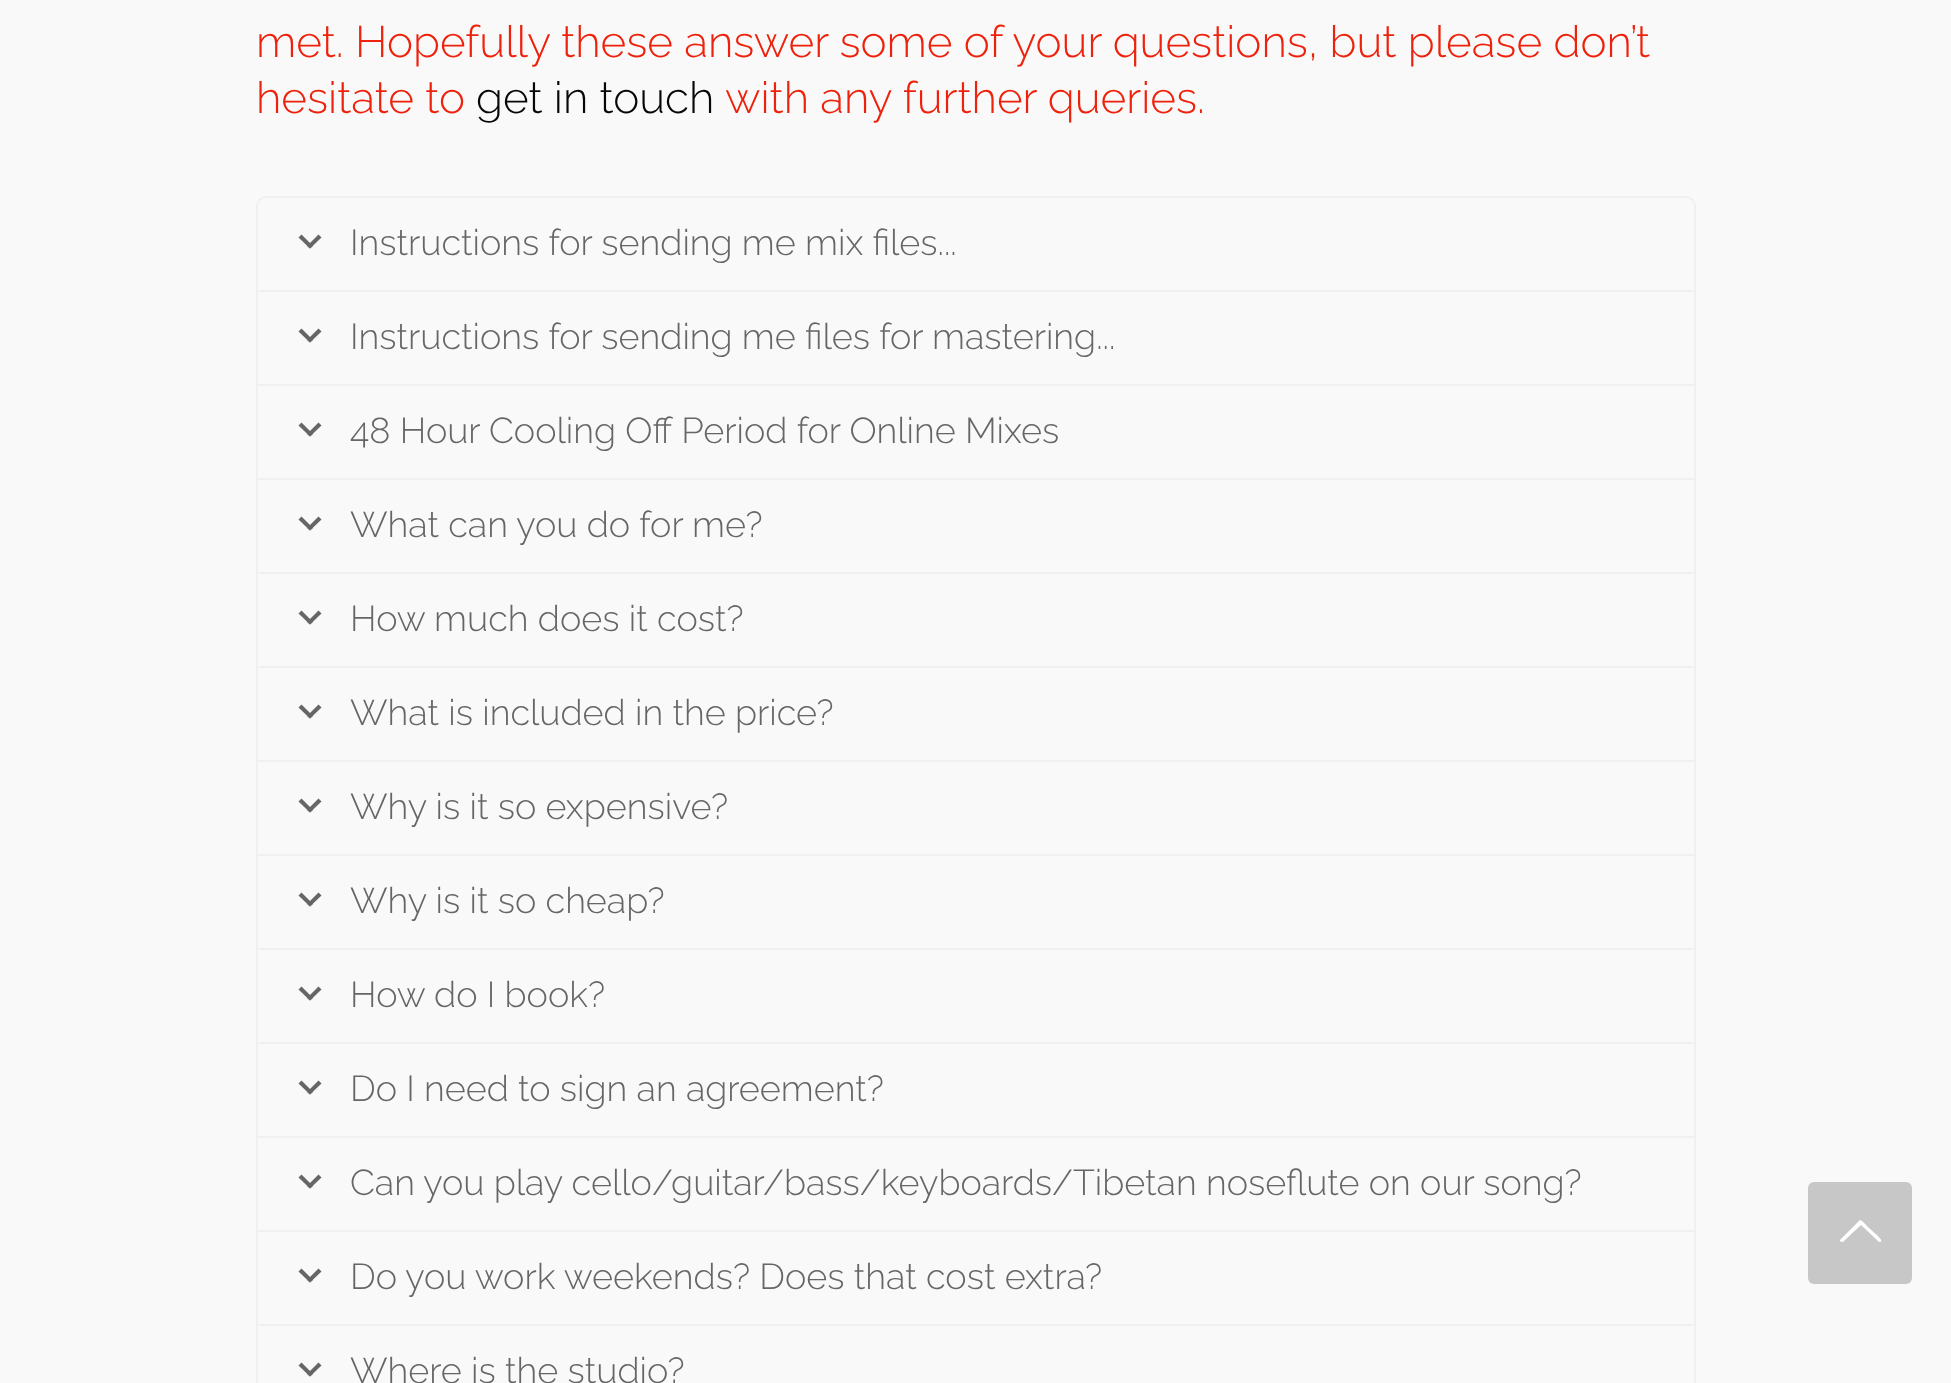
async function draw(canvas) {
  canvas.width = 1951
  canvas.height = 1383
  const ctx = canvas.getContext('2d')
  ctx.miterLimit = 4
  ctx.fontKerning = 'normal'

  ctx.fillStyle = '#f9f9f9'
  ctx.fillRect(0, 0, 1951, 1383)
  ctx.font = '100 44px Raleway'
  ctx.fillStyle = '#ee220c'
  ctx.fillText('met. Hopefully these answer some of your questions, but please don’t', 256, 57)
  ctx.fillText('hesitate to', 256, 113)
  ctx.fillStyle = '#070707'
  ctx.fillText('get in touch', 476, 113)
  ctx.fillStyle = '#ee220c'
  ctx.fillText('with any further queries.', 725, 113)
  ctx.beginPath()
  ctx.roundRect(257, 197, 1438, 94, [9, 9, 0, 0])
  ctx.strokeStyle = '#f0f0f0'
  ctx.lineWidth = 2
  ctx.stroke()
  ctx.fillStyle = '#666'
  ctx.beginPath()
  ctx.moveTo(318.5, 234.5)
  ctx.lineTo(321.5, 237.5)
  ctx.lineTo(310, 248.5)
  ctx.lineTo(307, 246)
  ctx.closePath()
  ctx.fill()
  ctx.beginPath()
  ctx.moveTo(301.5, 234.5)
  ctx.lineTo(313, 246)
  ctx.lineTo(310, 248.5)
  ctx.lineTo(298.5, 237.5)
  ctx.closePath()
  ctx.fill()
  ctx.font = '100 36px Raleway'
  ctx.fillText('Instructions for sending me mix files...', 350, 255)
  ctx.strokeRect(257, 291, 1438, 94)
  ctx.beginPath()
  ctx.moveTo(318.5, 328.5)
  ctx.lineTo(321.5, 331.5)
  ctx.lineTo(310, 342.5)
  ctx.lineTo(307, 340)
  ctx.closePath()
  ctx.fill()
  ctx.beginPath()
  ctx.moveTo(301.5, 328.5)
  ctx.lineTo(313, 340)
  ctx.lineTo(310, 342.5)
  ctx.lineTo(298.5, 331.5)
  ctx.closePath()
  ctx.fill()
  ctx.fillText('Instructions for sending me files for mastering...', 350, 349)
  ctx.strokeRect(257, 385, 1438, 94)
  ctx.beginPath()
  ctx.moveTo(318.5, 422.5)
  ctx.lineTo(321.5, 425.5)
  ctx.lineTo(310, 436.5)
  ctx.lineTo(307, 434)
  ctx.closePath()
  ctx.fill()
  ctx.beginPath()
  ctx.moveTo(301.5, 422.5)
  ctx.lineTo(313, 434)
  ctx.lineTo(310, 436.5)
  ctx.lineTo(298.5, 425.5)
  ctx.closePath()
  ctx.fill()
  ctx.fillText('48 Hour Cooling Off Period for Online Mixes', 350, 443)
  ctx.strokeRect(257, 479, 1438, 94)
  ctx.beginPath()
  ctx.moveTo(318.5, 516.5)
  ctx.lineTo(321.5, 519.5)
  ctx.lineTo(310, 530.5)
  ctx.lineTo(307, 528)
  ctx.closePath()
  ctx.fill()
  ctx.beginPath()
  ctx.moveTo(301.5, 516.5)
  ctx.lineTo(313, 528)
  ctx.lineTo(310, 530.5)
  ctx.lineTo(298.5, 519.5)
  ctx.closePath()
  ctx.fill()
  ctx.fillText('What can you do for me?', 350, 537)
  ctx.strokeRect(257, 573, 1438, 94)
  ctx.beginPath()
  ctx.moveTo(318.5, 610.5)
  ctx.lineTo(321.5, 613.5)
  ctx.lineTo(310, 624.5)
  ctx.lineTo(307, 622)
  ctx.closePath()
  ctx.fill()
  ctx.beginPath()
  ctx.moveTo(301.5, 610.5)
  ctx.lineTo(313, 622)
  ctx.lineTo(310, 624.5)
  ctx.lineTo(298.5, 613.5)
  ctx.closePath()
  ctx.fill()
  ctx.fillText('How much does it cost?', 350, 631)
  ctx.strokeRect(257, 667, 1438, 94)
  ctx.beginPath()
  ctx.moveTo(318.5, 704.5)
  ctx.lineTo(321.5, 707.5)
  ctx.lineTo(310, 718.5)
  ctx.lineTo(307, 716)
  ctx.closePath()
  ctx.fill()
  ctx.beginPath()
  ctx.moveTo(301.5, 704.5)
  ctx.lineTo(313, 716)
  ctx.lineTo(310, 718.5)
  ctx.lineTo(298.5, 707.5)
  ctx.closePath()
  ctx.fill()
  ctx.fillText('What is included in the price?', 350, 725)
  ctx.strokeRect(257, 761, 1438, 94)
  ctx.beginPath()
  ctx.moveTo(318.5, 798.5)
  ctx.lineTo(321.5, 801.5)
  ctx.lineTo(310, 812.5)
  ctx.lineTo(307, 810)
  ctx.closePath()
  ctx.fill()
  ctx.beginPath()
  ctx.moveTo(301.5, 798.5)
  ctx.lineTo(313, 810)
  ctx.lineTo(310, 812.5)
  ctx.lineTo(298.5, 801.5)
  ctx.closePath()
  ctx.fill()
  ctx.fillText('Why is it so expensive?', 350, 819)
  ctx.strokeRect(257, 855, 1438, 94)
  ctx.beginPath()
  ctx.moveTo(318.5, 892.5)
  ctx.lineTo(321.5, 895.5)
  ctx.lineTo(310, 906.5)
  ctx.lineTo(307, 904)
  ctx.closePath()
  ctx.fill()
  ctx.beginPath()
  ctx.moveTo(301.5, 892.5)
  ctx.lineTo(313, 904)
  ctx.lineTo(310, 906.5)
  ctx.lineTo(298.5, 895.5)
  ctx.closePath()
  ctx.fill()
  ctx.fillText('Why is it so cheap?', 350, 913)
  ctx.strokeRect(257, 949, 1438, 94)
  ctx.beginPath()
  ctx.moveTo(318.5, 986.5)
  ctx.lineTo(321.5, 989.5)
  ctx.lineTo(310, 1000.5)
  ctx.lineTo(307, 998)
  ctx.closePath()
  ctx.fill()
  ctx.beginPath()
  ctx.moveTo(301.5, 986.5)
  ctx.lineTo(313, 998)
  ctx.lineTo(310, 1000.5)
  ctx.lineTo(298.5, 989.5)
  ctx.closePath()
  ctx.fill()
  ctx.fillText('How do I book?', 350, 1007)
  ctx.strokeRect(257, 1043, 1438, 94)
  ctx.beginPath()
  ctx.moveTo(318.5, 1080.5)
  ctx.lineTo(321.5, 1083.5)
  ctx.lineTo(310, 1094.5)
  ctx.lineTo(307, 1092)
  ctx.closePath()
  ctx.fill()
  ctx.beginPath()
  ctx.moveTo(301.5, 1080.5)
  ctx.lineTo(313, 1092)
  ctx.lineTo(310, 1094.5)
  ctx.lineTo(298.5, 1083.5)
  ctx.closePath()
  ctx.fill()
  ctx.fillText('Do I need to sign an agreement?', 350, 1101)
  ctx.strokeRect(257, 1137, 1438, 94)
  ctx.beginPath()
  ctx.moveTo(318.5, 1174.5)
  ctx.lineTo(321.5, 1177.5)
  ctx.lineTo(310, 1188.5)
  ctx.lineTo(307, 1186)
  ctx.closePath()
  ctx.fill()
  ctx.beginPath()
  ctx.moveTo(301.5, 1174.5)
  ctx.lineTo(313, 1186)
  ctx.lineTo(310, 1188.5)
  ctx.lineTo(298.5, 1177.5)
  ctx.closePath()
  ctx.fill()
  ctx.fillText('Can you play cello/guitar/bass/keyboards/Tibetan noseflute on our song?', 350, 1195)
  ctx.strokeRect(257, 1231, 1438, 94)
  ctx.beginPath()
  ctx.moveTo(318.5, 1268.5)
  ctx.lineTo(321.5, 1271.5)
  ctx.lineTo(310, 1282.5)
  ctx.lineTo(307, 1280)
  ctx.closePath()
  ctx.fill()
  ctx.beginPath()
  ctx.moveTo(301.5, 1268.5)
  ctx.lineTo(313, 1280)
  ctx.lineTo(310, 1282.5)
  ctx.lineTo(298.5, 1271.5)
  ctx.closePath()
  ctx.fill()
  ctx.fillText('Do you work weekends? Does that cost extra?', 350, 1289)
  ctx.strokeRect(257, 1325, 1438, 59)
  ctx.beginPath()
  ctx.moveTo(318.5, 1362.5)
  ctx.lineTo(321.5, 1365.5)
  ctx.lineTo(310, 1376.5)
  ctx.lineTo(307, 1374)
  ctx.closePath()
  ctx.fill()
  ctx.beginPath()
  ctx.moveTo(301.5, 1362.5)
  ctx.lineTo(313, 1374)
  ctx.lineTo(310, 1376.5)
  ctx.lineTo(298.5, 1365.5)
  ctx.closePath()
  ctx.fill()
  ctx.fillText('Where is the studio?', 350, 1383)
  ctx.fillStyle = '#c7c7c7'
  ctx.beginPath()
  ctx.roundRect(1808, 1182, 104, 102, 6)
  ctx.fill()
  ctx.fillStyle = '#fff'
  ctx.beginPath()
  ctx.moveTo(1879, 1242)
  ctx.lineTo(1861, 1225)
  ctx.lineTo(1846, 1239)
  ctx.bezierCurveTo(1845, 1240, 1842, 1244, 1840, 1241)
  ctx.lineTo(1840, 1240)
  ctx.lineTo(1860, 1220)
  ctx.bezierCurveTo(1862, 1220, 1867, 1226, 1868, 1227)
  ctx.lineTo(1878, 1236)
  ctx.bezierCurveTo(1878, 1237, 1884, 1241, 1880, 1242)
  ctx.closePath()
  ctx.fill()
}

draw(document.querySelector('canvas'))
